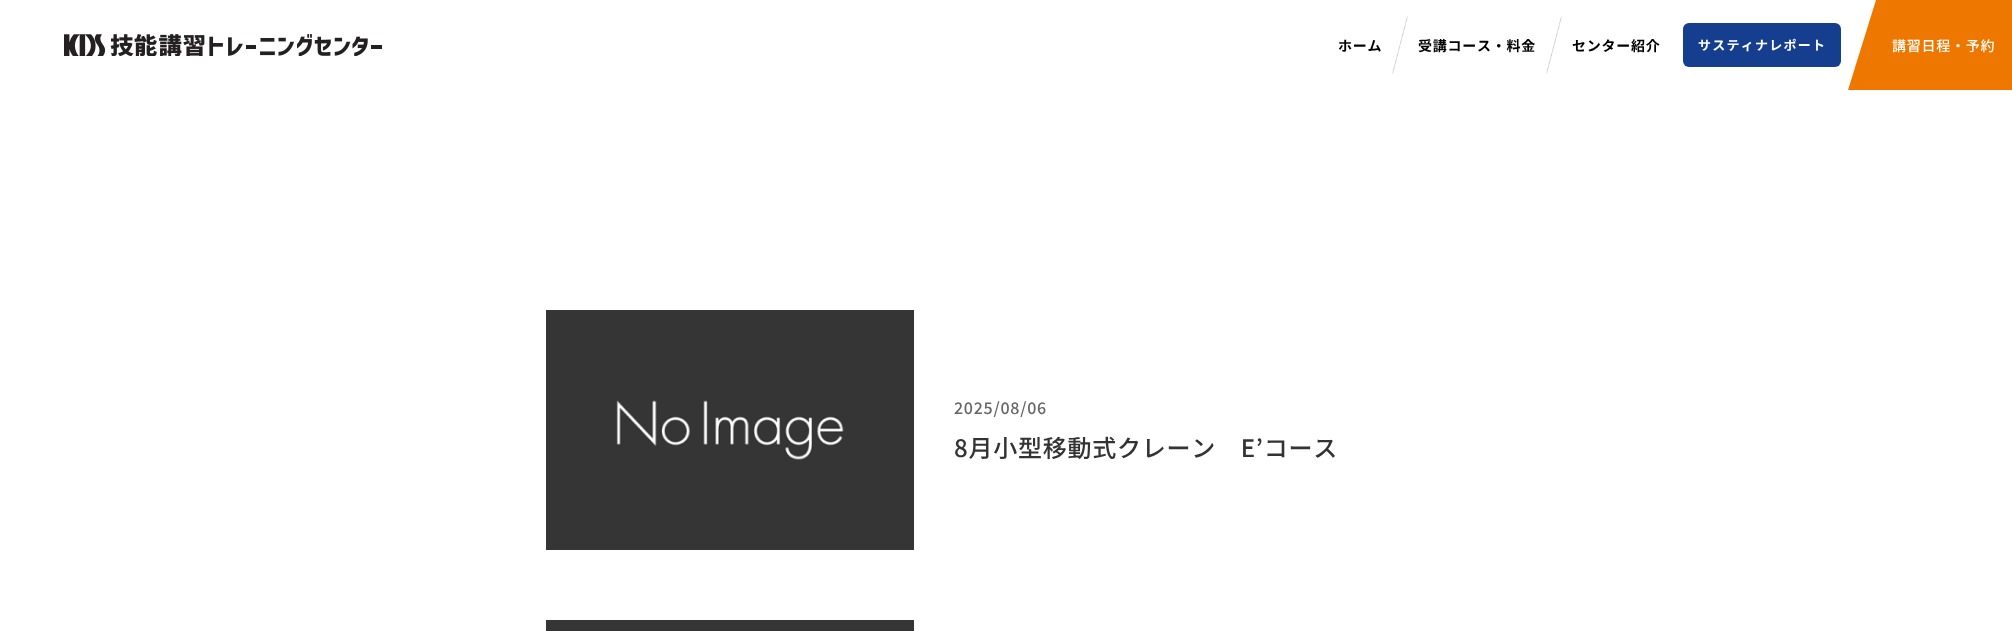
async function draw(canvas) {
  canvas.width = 2012
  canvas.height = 631
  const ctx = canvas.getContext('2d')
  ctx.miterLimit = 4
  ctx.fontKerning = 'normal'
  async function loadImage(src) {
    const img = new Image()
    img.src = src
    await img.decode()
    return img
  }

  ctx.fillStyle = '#fff'
  ctx.fillRect(0, 0, 2012, 631)
  ctx.drawImage(await loadImage('image0.png'), 64, 34, 318, 22)
  ctx.letterSpacing = '0.75px'
  ctx.font = 'bold 14px Noto Sans JP'
  ctx.fillStyle = '#000'
  ctx.fillText('ホーム', 1338, 51)
  ctx.drawImage(await loadImage('image1.png'), 1392, 16, 16, 58)
  ctx.fillText('受講コース・料金', 1418, 51)
  ctx.drawImage(await loadImage('image1.png'), 1546, 16, 16, 58)
  ctx.fillText('センター紹介', 1572, 51)
  ctx.fillStyle = '#163e8e'
  ctx.beginPath()
  ctx.roundRect(1683, 23, 158, 44, 6)
  ctx.fill()
  ctx.letterSpacing = '1.25px'
  ctx.font = 'bold 13px Noto Sans JP'
  ctx.fillStyle = '#fff'
  ctx.fillText('サスティナレポート', 1698, 50)
  ctx.fillStyle = '#e70'
  ctx.fillRect(1876, 0, 136, 90)
  ctx.beginPath()
  ctx.moveTo(1876, 90)
  ctx.lineTo(1848, 90)
  ctx.lineTo(1876, 0)
  ctx.closePath()
  ctx.fill()
  ctx.letterSpacing = '0.75px'
  ctx.font = '500 14px Noto Sans JP'
  ctx.fillStyle = '#fff'
  ctx.fillText('講習日程・予約', 1892, 51)
  ctx.drawImage(await loadImage('image2.png'), 546, 310, 368, 240)
  ctx.font = '500 16px Noto Sans JP'
  ctx.fillStyle = '#666'
  ctx.fillText('2025/08/06', 954, 414)
  ctx.font = '500 24px Noto Sans JP'
  ctx.fillStyle = '#333'
  ctx.fillText('8月小型移動式クレーン　E’コース', 954, 457)
  ctx.fillStyle = '#353535'
  ctx.fillRect(546, 620, 368, 11)
}

draw(document.querySelector('canvas'))
